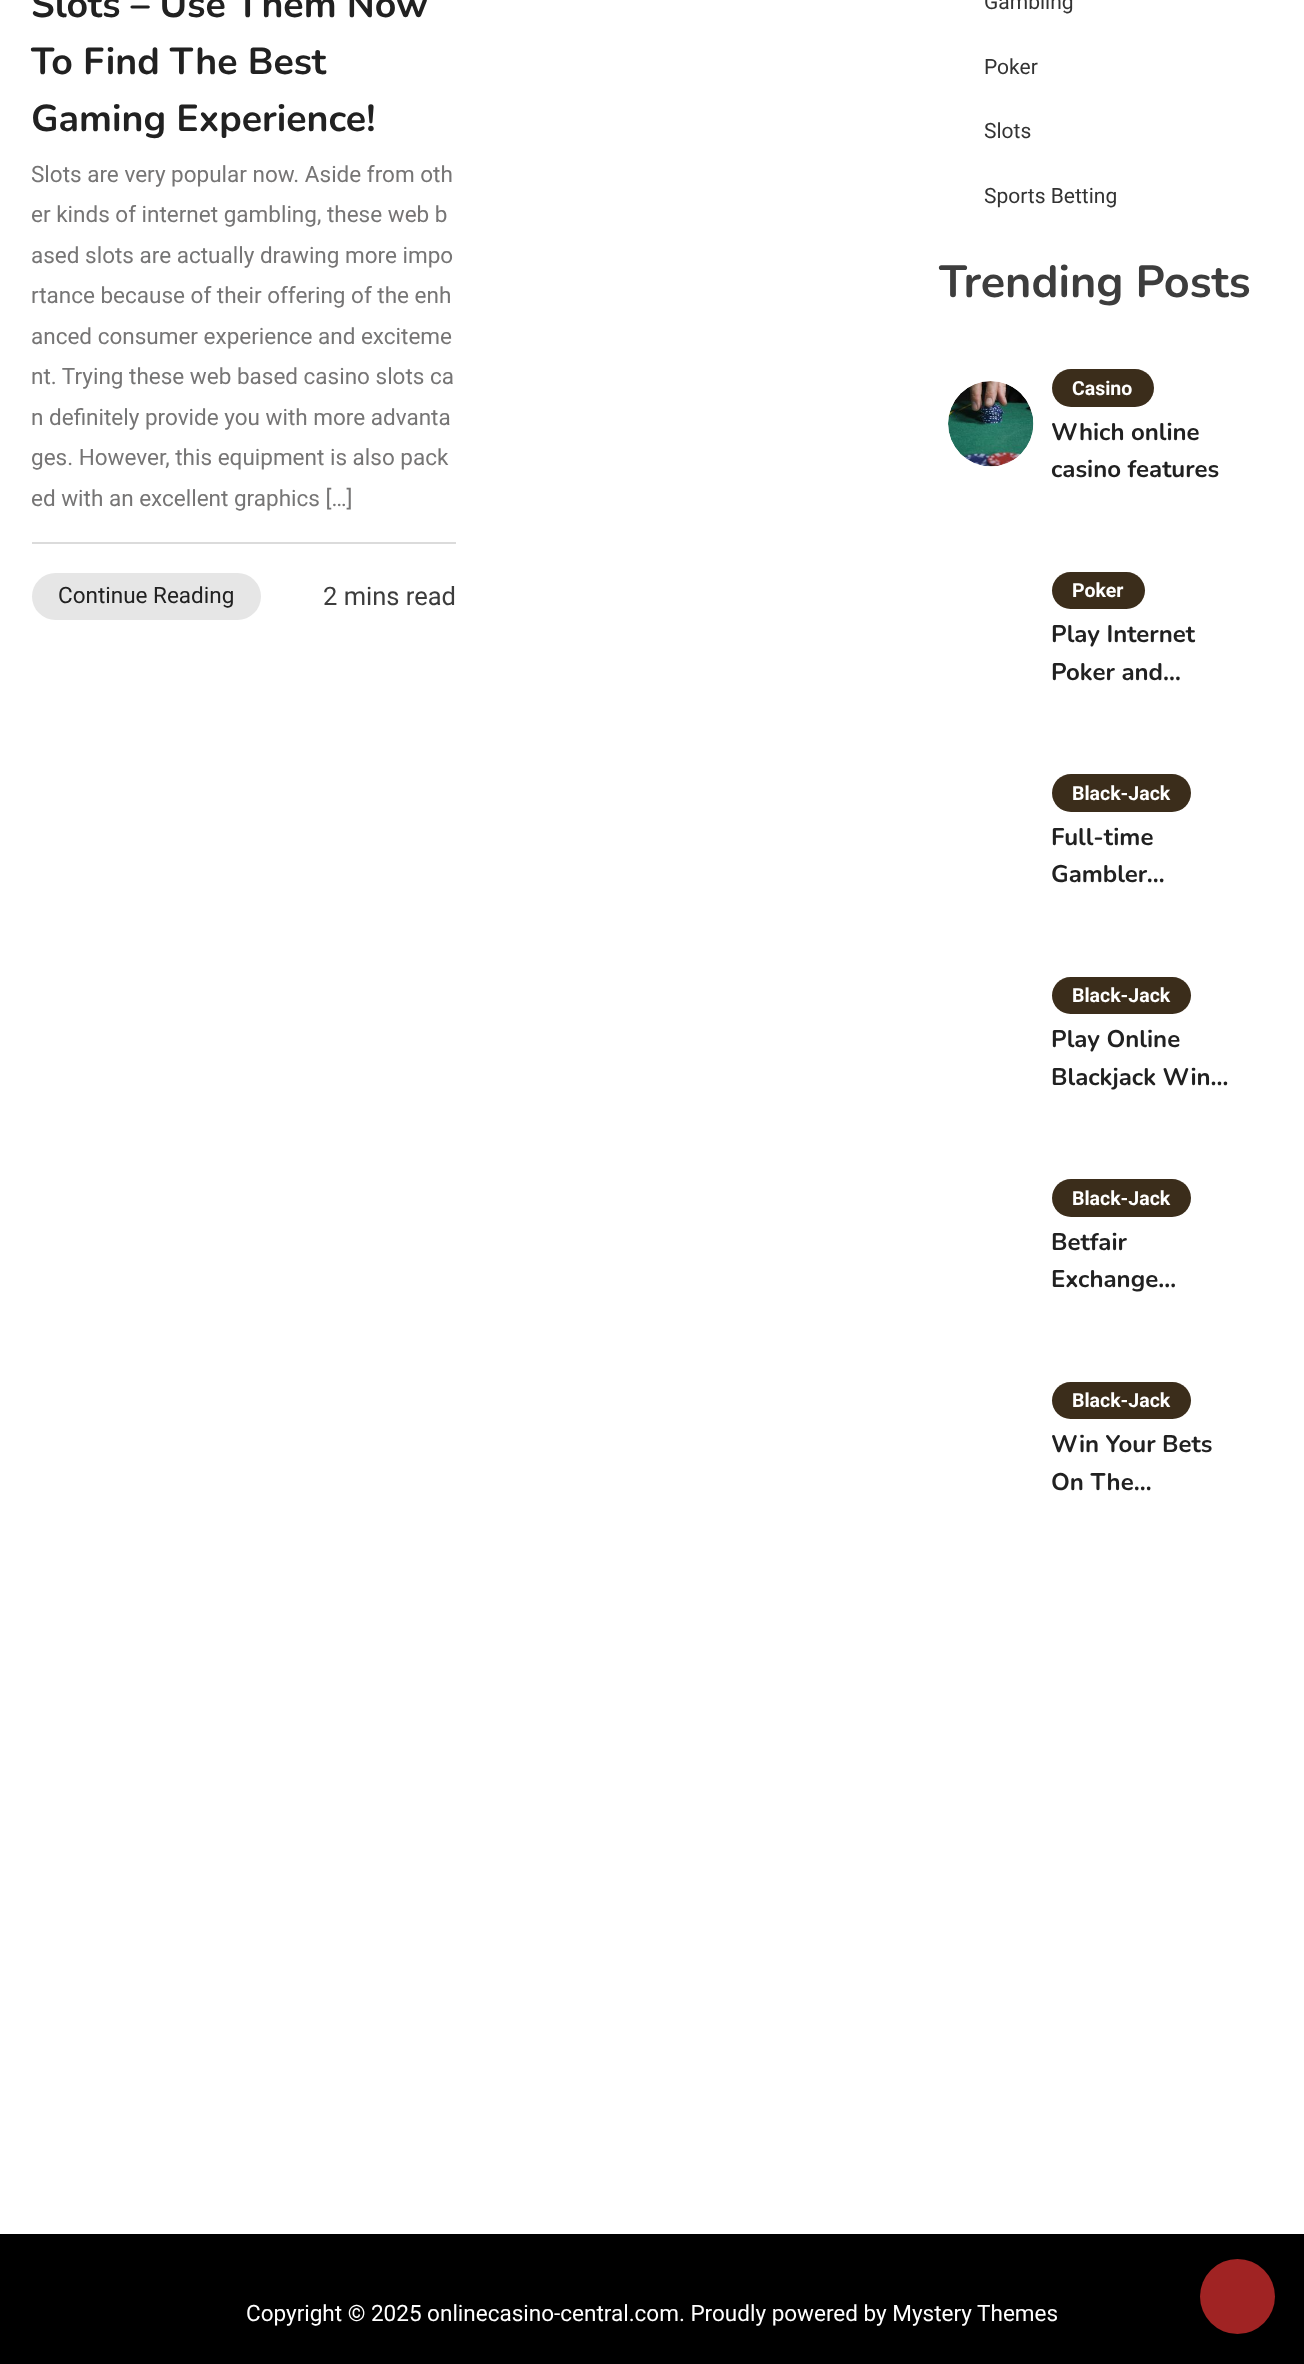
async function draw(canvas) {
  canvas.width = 1304
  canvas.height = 2364
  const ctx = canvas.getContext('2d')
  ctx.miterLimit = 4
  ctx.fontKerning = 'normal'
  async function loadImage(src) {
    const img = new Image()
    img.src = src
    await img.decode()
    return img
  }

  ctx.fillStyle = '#fff'
  ctx.fillRect(0, 0, 1304, 2364)
  ctx.font = 'bold 37.5px Nunito'
  ctx.fillStyle = '#212121'
  ctx.fillText('Slots – Use Them Now', 31, 17)
  ctx.fillText('To Find The Best', 31, 74)
  ctx.fillText('Gaming Experience!', 31, 131)
  ctx.font = '22.5px Roboto'
  ctx.fillStyle = '#767575'
  ctx.fillText('Slots are very popular now. Aside from oth', 31, 182)
  ctx.fillText('er kinds of internet gambling, these web b', 31, 222)
  ctx.fillText('ased slots are actually drawing more impo', 31, 263)
  ctx.fillText('rtance because of their offering of the enh', 31, 303)
  ctx.fillText('anced consumer experience and exciteme', 31, 344)
  ctx.fillText('nt. Trying these web based casino slots ca', 31, 384)
  ctx.fillText('n definitely provide you with more advanta', 31, 425)
  ctx.fillText('ges. However, this equipment is also pack', 31, 465)
  ctx.fillText('ed with an excellent graphics […]', 31, 506)
  ctx.fillStyle = '#dbdbdb'
  ctx.fillRect(32, 542, 424, 2)
  ctx.fillStyle = '#e6e6e6'
  ctx.beginPath()
  ctx.roundRect(32, 573, 229, 47, 23.5)
  ctx.fill()
  ctx.fillStyle = '#212121'
  ctx.fillText('Continue Reading', 58, 603)
  ctx.font = '25.5px Roboto'
  ctx.fillStyle = '#3d3d3d'
  ctx.fillText('2 mins read', 323, 605)
  ctx.font = '21px Roboto'
  ctx.fillStyle = '#333'
  ctx.fillText('Gambling', 984, 9)
  ctx.fillText('Poker', 984, 74)
  ctx.fillText('Slots', 984, 138)
  ctx.fillText('Sports Betting', 984, 203)
  ctx.font = 'bold 45px Nunito'
  ctx.fillStyle = '#3d3d3d'
  ctx.fillText('Trending Posts', 939, 297)
  ctx.drawImage(await loadImage('image0.png'), 948, 381, 86, 86)
  ctx.fillStyle = '#3b2d1b'
  ctx.beginPath()
  ctx.roundRect(1052, 369, 102, 38, 19)
  ctx.fill()
  ctx.font = 'bold 19.5px Roboto'
  ctx.fillStyle = '#fff'
  ctx.fillText('Casino', 1072, 395)
  ctx.font = 'bold 24px Nunito'
  ctx.fillStyle = '#212121'
  ctx.fillText('Which online', 1051, 440)
  ctx.fillText('casino features', 1051, 477)
  ctx.fillStyle = '#3b2d1b'
  ctx.beginPath()
  ctx.roundRect(1052, 572, 93, 37, 18.5)
  ctx.fill()
  ctx.font = 'bold 19.5px Roboto'
  ctx.fillStyle = '#fff'
  ctx.fillText('Poker', 1072, 597)
  ctx.font = 'bold 24px Nunito'
  ctx.fillStyle = '#212121'
  ctx.fillText('Play Internet', 1051, 642)
  ctx.fillText('Poker and…', 1051, 680)
  ctx.fillStyle = '#3b2d1b'
  ctx.beginPath()
  ctx.roundRect(1052, 774, 139, 38, 19)
  ctx.fill()
  ctx.font = 'bold 19.5px Roboto'
  ctx.fillStyle = '#fff'
  ctx.fillText('Black-Jack', 1072, 800)
  ctx.font = 'bold 24px Nunito'
  ctx.fillStyle = '#212121'
  ctx.fillText('Full-time', 1051, 845)
  ctx.fillText('Gambler…', 1051, 882)
  ctx.fillStyle = '#3b2d1b'
  ctx.beginPath()
  ctx.roundRect(1052, 977, 139, 37, 18.5)
  ctx.fill()
  ctx.font = 'bold 19.5px Roboto'
  ctx.fillStyle = '#fff'
  ctx.fillText('Black-Jack', 1072, 1002)
  ctx.font = 'bold 24px Nunito'
  ctx.fillStyle = '#212121'
  ctx.fillText('Play Online', 1051, 1047)
  ctx.fillText('Blackjack Win…', 1051, 1085)
  ctx.fillStyle = '#3b2d1b'
  ctx.beginPath()
  ctx.roundRect(1052, 1179, 139, 38, 19)
  ctx.fill()
  ctx.font = 'bold 19.5px Roboto'
  ctx.fillStyle = '#fff'
  ctx.fillText('Black-Jack', 1072, 1205)
  ctx.font = 'bold 24px Nunito'
  ctx.fillStyle = '#212121'
  ctx.fillText('Betfair', 1051, 1250)
  ctx.fillText('Exchange…', 1051, 1287)
  ctx.fillStyle = '#3b2d1b'
  ctx.beginPath()
  ctx.roundRect(1052, 1382, 139, 37, 18.5)
  ctx.fill()
  ctx.font = 'bold 19.5px Roboto'
  ctx.fillStyle = '#fff'
  ctx.fillText('Black-Jack', 1072, 1407)
  ctx.font = 'bold 24px Nunito'
  ctx.fillStyle = '#212121'
  ctx.fillText('Win Your Bets', 1051, 1452)
  ctx.fillText('On The…', 1051, 1490)
  ctx.fillStyle = '#000'
  ctx.fillRect(0, 2234, 1304, 130)
  ctx.font = '22.5px Roboto'
  ctx.fillStyle = '#fff'
  ctx.fillText('Copyright © 2025 onlinecasino-central.com. Proudly powered by Mystery Themes', 246, 2321)
  ctx.fillStyle = '#a02323'
  ctx.beginPath()
  ctx.arc(1237.5, 2296.5, 37.5, 0, 2 * Math.PI)
  ctx.fill()
}

draw(document.querySelector('canvas'))
